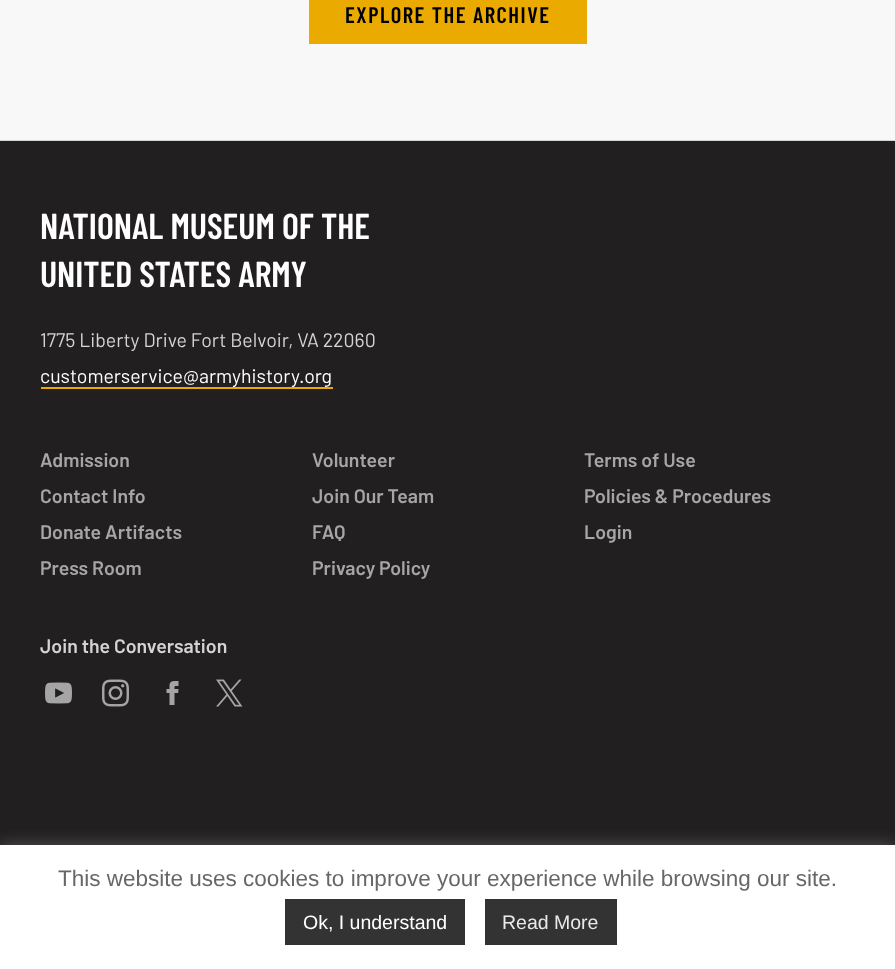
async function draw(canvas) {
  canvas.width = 895
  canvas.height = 969
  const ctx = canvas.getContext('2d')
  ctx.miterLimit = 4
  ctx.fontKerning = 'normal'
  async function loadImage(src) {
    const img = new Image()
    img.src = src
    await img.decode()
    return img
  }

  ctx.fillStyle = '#d4d4d4'
  ctx.fillRect(0, 0, 895, 969)
  ctx.fillStyle = '#f8f8f8'
  ctx.fillRect(0, 0, 895, 140)
  ctx.fillStyle = '#eaaa00'
  ctx.fillRect(309, 0, 278, 44)
  ctx.letterSpacing = '1.5px'
  ctx.font = '600 22.5px Barlow Condensed'
  ctx.fillStyle = '#000'
  ctx.fillText('EXPLORE THE ARCHIVE', 345, 23)
  ctx.fillStyle = '#221f20'
  ctx.fillRect(0, 141, 895, 704)
  ctx.letterSpacing = '0px'
  ctx.font = '600 36px Barlow Condensed'
  ctx.fillStyle = '#fff'
  ctx.fillText('NATIONAL MUSEUM OF THE', 40, 239)
  ctx.fillText('UNITED STATES ARMY', 40, 287)
  ctx.font = '19.5px Barlow'
  ctx.fillStyle = '#d4d4d4'
  ctx.fillText('1775 Liberty Drive Fort Belvoir, VA 22060', 40, 347)
  ctx.fillStyle = '#fff'
  ctx.fillText('customerservice@armyhistory.org', 40, 383)
  ctx.fillStyle = '#eaaa00'
  ctx.fillRect(41, 387, 292, 2)
  ctx.font = '600 19.5px Barlow'
  ctx.fillStyle = '#a7a5a6'
  ctx.fillText('Admission', 40, 467)
  ctx.fillText('Volunteer', 312, 467)
  ctx.fillText('Terms of Use', 584, 467)
  ctx.fillText('Contact Info', 40, 503)
  ctx.fillText('Join Our Team', 312, 503)
  ctx.fillText('Policies & Procedures', 584, 503)
  ctx.fillText('Donate Artifacts', 40, 539)
  ctx.fillText('FAQ', 312, 539)
  ctx.fillText('Login', 584, 539)
  ctx.fillText('Press Room', 40, 575)
  ctx.fillText('Privacy Policy', 312, 575)
  ctx.fillStyle = '#d4d4d4'
  ctx.fillText('Join the Conversation', 40, 653)
  ctx.drawImage(await loadImage('image0.png'), 45, 682, 27, 22)
  ctx.drawImage(await loadImage('image1.png'), 102, 679, 27, 28)
  ctx.drawImage(await loadImage('image2.png'), 166, 681, 13, 24)
  ctx.drawImage(await loadImage('image3.png'), 216, 679, 27, 28)
  ctx.fillStyle = '#acabab4d'
  ctx.filter = 'blur(7.5px)'
  ctx.beginPath()
  ctx.rect(0, 843, 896, 125)
  ctx.fill()
  ctx.filter = 'none'
  ctx.fillStyle = '#fff'
  ctx.fillRect(0, 845, 895, 124)
  ctx.font = '22.5px Liberation Sans'
  ctx.fillStyle = '#666767'
  ctx.fillText('This website uses cookies to improve your experience while browsing our site.', 58, 886)
  ctx.fillStyle = '#333'
  ctx.fillRect(285, 899, 180, 46)
  ctx.font = '19.5px Liberation Sans'
  ctx.fillStyle = '#fff'
  ctx.fillText('Ok, I understand', 303, 929)
  ctx.fillStyle = '#333'
  ctx.fillRect(485, 899, 132, 46)
  ctx.fillStyle = '#eaeaea'
  ctx.fillText('Read More', 502, 929)
}

draw(document.querySelector('canvas'))
